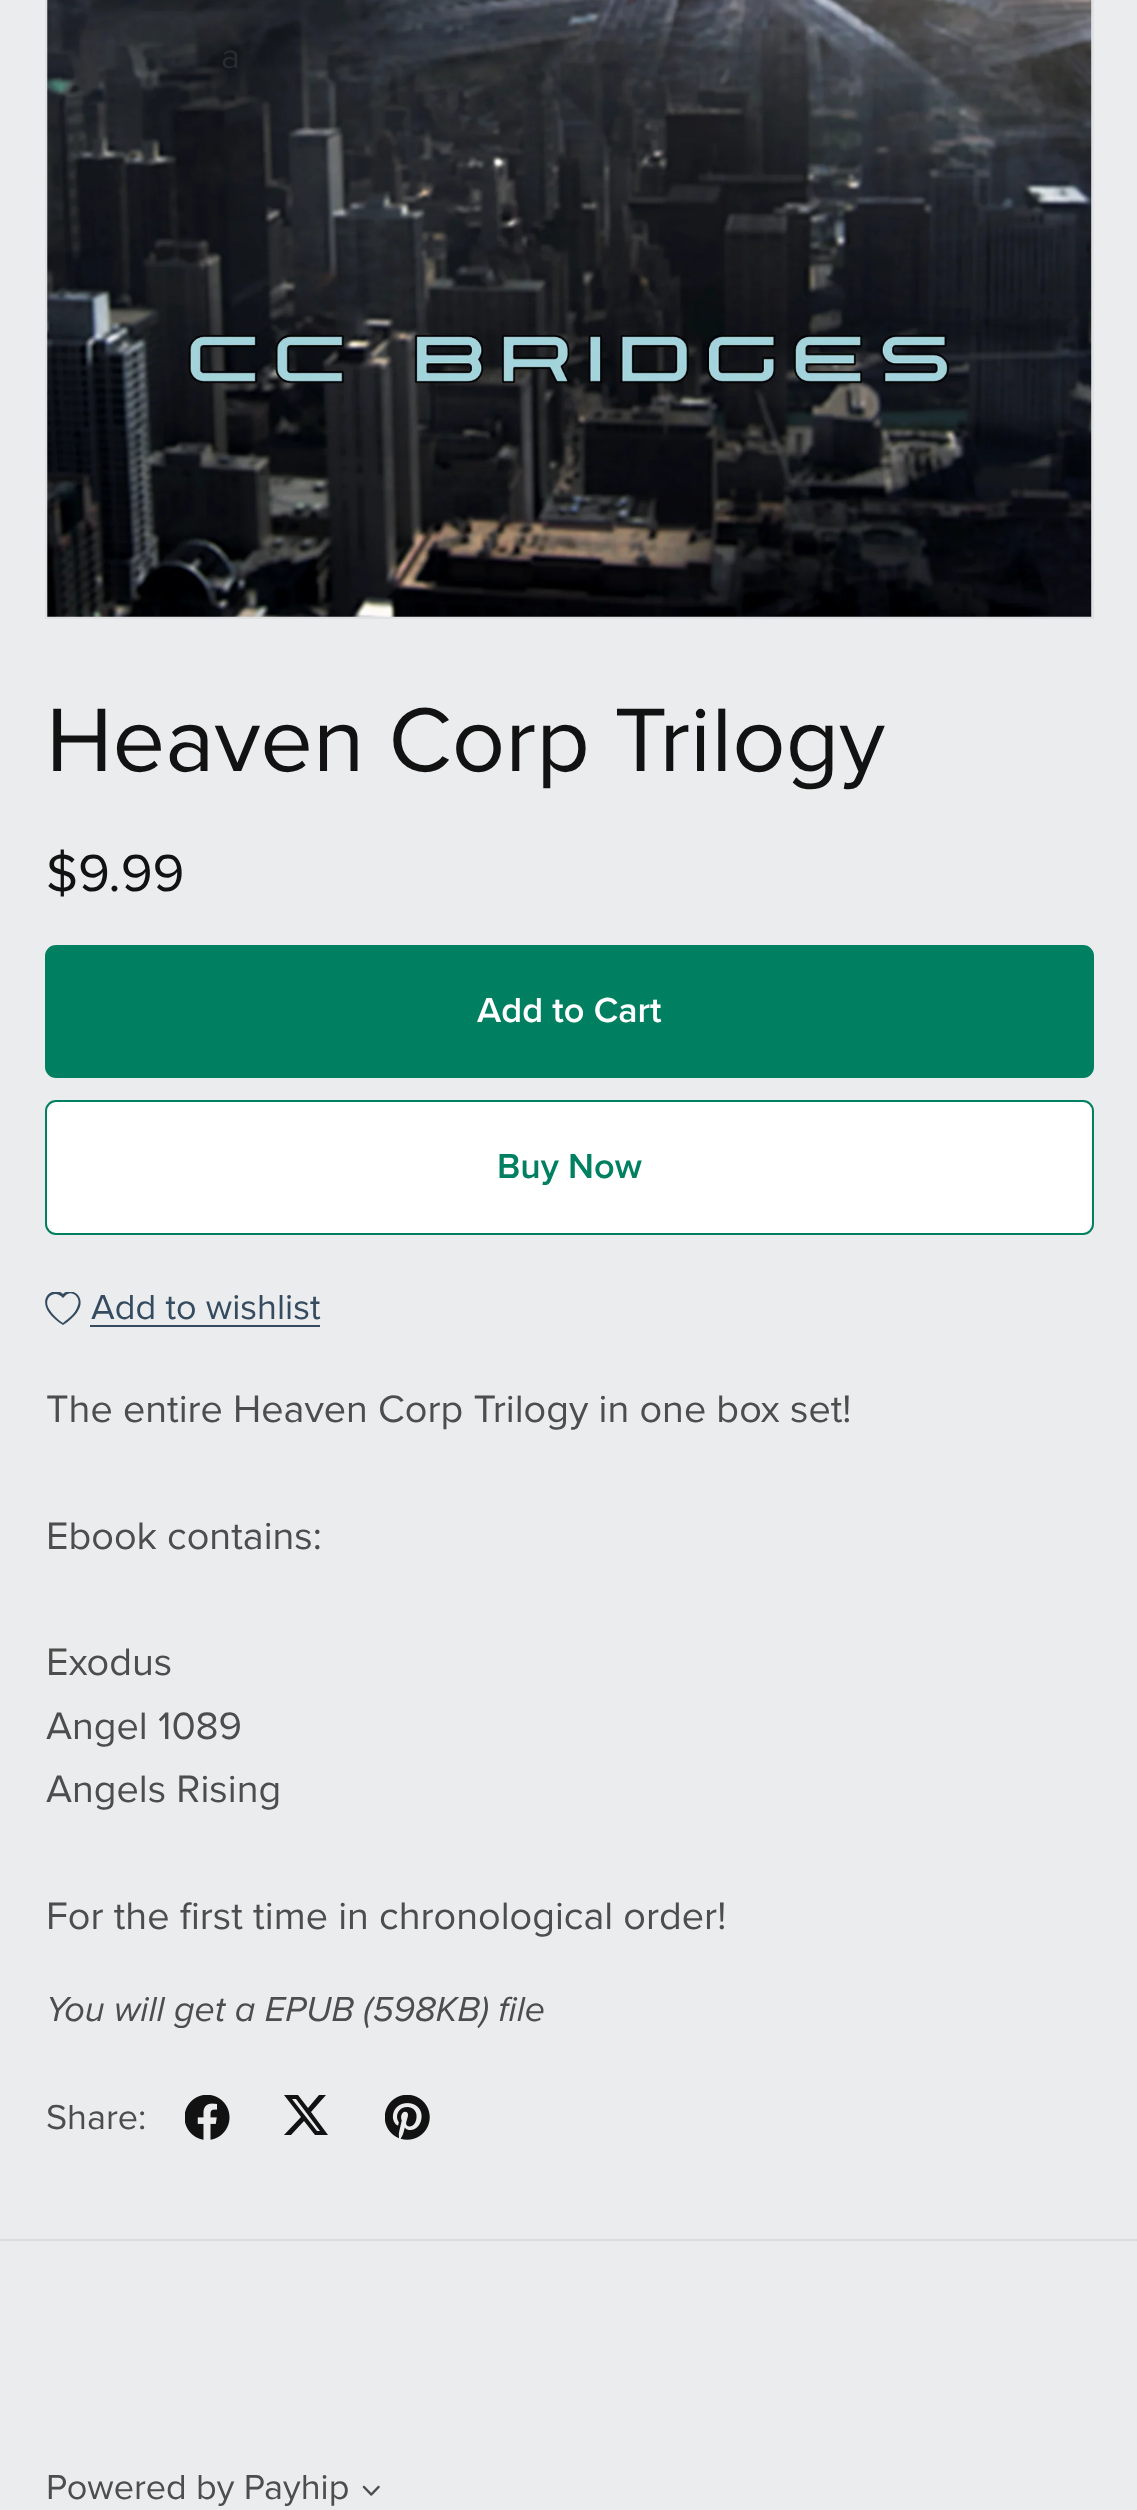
async function draw(canvas) {
  canvas.width = 1137
  canvas.height = 2510
  const ctx = canvas.getContext('2d')
  ctx.miterLimit = 4
  ctx.fontKerning = 'normal'
  async function loadImage(src) {
    const img = new Image()
    img.src = src
    await img.decode()
    return img
  }

  ctx.fillStyle = '#ebeced'
  ctx.fillRect(0, 0, 1137, 2510)
  ctx.strokeStyle = '#e0e1e2'
  ctx.lineWidth = 2
  ctx.strokeRect(46, -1, 1047, 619)
  ctx.drawImage(await loadImage('image0.png'), 47, 0, 1045, 617)
  ctx.font = '36px Proxima Nova'
  ctx.fillStyle = '#282c31'
  ctx.fillText('a', 221, 68)
  ctx.font = '93.5px Proxima Nova'
  ctx.fillStyle = '#121212'
  ctx.fillText('Heaven Corp Trilogy', 46, 771)
  ctx.font = '54px Proxima Nova'
  ctx.fillText('$9.99', 46, 891)
  ctx.fillStyle = '#008060'
  ctx.beginPath()
  ctx.roundRect(46, 946, 1047, 131, 10)
  ctx.fill()
  ctx.strokeStyle = '#008060'
  ctx.stroke()
  ctx.font = '600 36px Proxima Nova'
  ctx.fillStyle = '#fff'
  ctx.fillText('Add to Cart', 477, 1022)
  ctx.beginPath()
  ctx.roundRect(46, 1101, 1047, 133, 10)
  ctx.fill()
  ctx.stroke()
  ctx.fillStyle = '#008060'
  ctx.fillText('Buy Now', 497, 1178)
  ctx.font = '36px Proxima Nova'
  ctx.fillStyle = '#344b60'
  ctx.fillText('Add to wishlist', 91, 1319)
  ctx.fillRect(90, 1325, 230, 2)
  ctx.save()
  ctx.beginPath()
  ctx.rect(45, 1292, 36, 36)
  ctx.clip()
  ctx.beginPath()
  ctx.moveTo(63, 1298)
  ctx.bezierCurveTo(55, 1289, 44, 1297, 48, 1307)
  ctx.bezierCurveTo(51, 1313, 57, 1319, 63, 1323)
  ctx.bezierCurveTo(69, 1318, 76, 1313, 78, 1305)
  ctx.bezierCurveTo(81, 1297, 71, 1289, 65, 1296)
  ctx.closePath()
  ctx.moveTo(63, 1325)
  ctx.bezierCurveTo(29, 1303, 52, 1284, 63, 1294)
  ctx.bezierCurveTo(73, 1284, 97, 1303, 63, 1325)
  ctx.fill()
  ctx.restore()
  ctx.font = '39.6px Proxima Nova'
  ctx.fillStyle = '#4d4d4d'
  ctx.fillText('The entire Heaven Corp Trilogy in one box set!', 46, 1422)
  ctx.fillText('Ebook contains:', 46, 1549)
  ctx.fillText('Exodus', 46, 1675)
  ctx.fillText('Angel 1089', 46, 1739)
  ctx.fillText('Angels Rising', 46, 1802)
  ctx.fillText('For the first time in chronological order!', 46, 1929)
  ctx.font = 'italic 36px Proxima Nova'
  ctx.fillText('You will get a EPUB (598KB) file', 46, 2021)
  ctx.font = '36px Proxima Nova'
  ctx.fillText('Share:', 46, 2129)
  ctx.drawImage(await loadImage('image1.png'), 185, 2095, 45, 45)
  ctx.fillStyle = '#121212'
  ctx.beginPath()
  ctx.moveTo(319, 2095)
  ctx.lineTo(326, 2095)
  ctx.lineTo(311, 2112)
  ctx.lineTo(328, 2135)
  ctx.lineTo(315, 2135)
  ctx.lineTo(304, 2121)
  ctx.lineTo(291, 2135)
  ctx.lineTo(284, 2135)
  ctx.lineTo(301, 2117)
  ctx.lineTo(284, 2095)
  ctx.lineTo(298, 2095)
  ctx.lineTo(308, 2108)
  ctx.closePath()
  ctx.moveTo(317, 2131)
  ctx.lineTo(320, 2131)
  ctx.lineTo(296, 2099)
  ctx.lineTo(292, 2099)
  ctx.closePath()
  ctx.fill()
  ctx.drawImage(await loadImage('image2.png'), 385, 2095, 45, 45)
  ctx.fillStyle = '#dbdcdd'
  ctx.fillRect(0, 2239, 1137, 2)
  ctx.fillStyle = '#4d4d4d'
  ctx.fillText('Powered by Payhip', 46, 2499)
  ctx.drawImage(await loadImage('image3.png'), 362, 2485, 18, 11)
}

draw(document.querySelector('canvas'))
